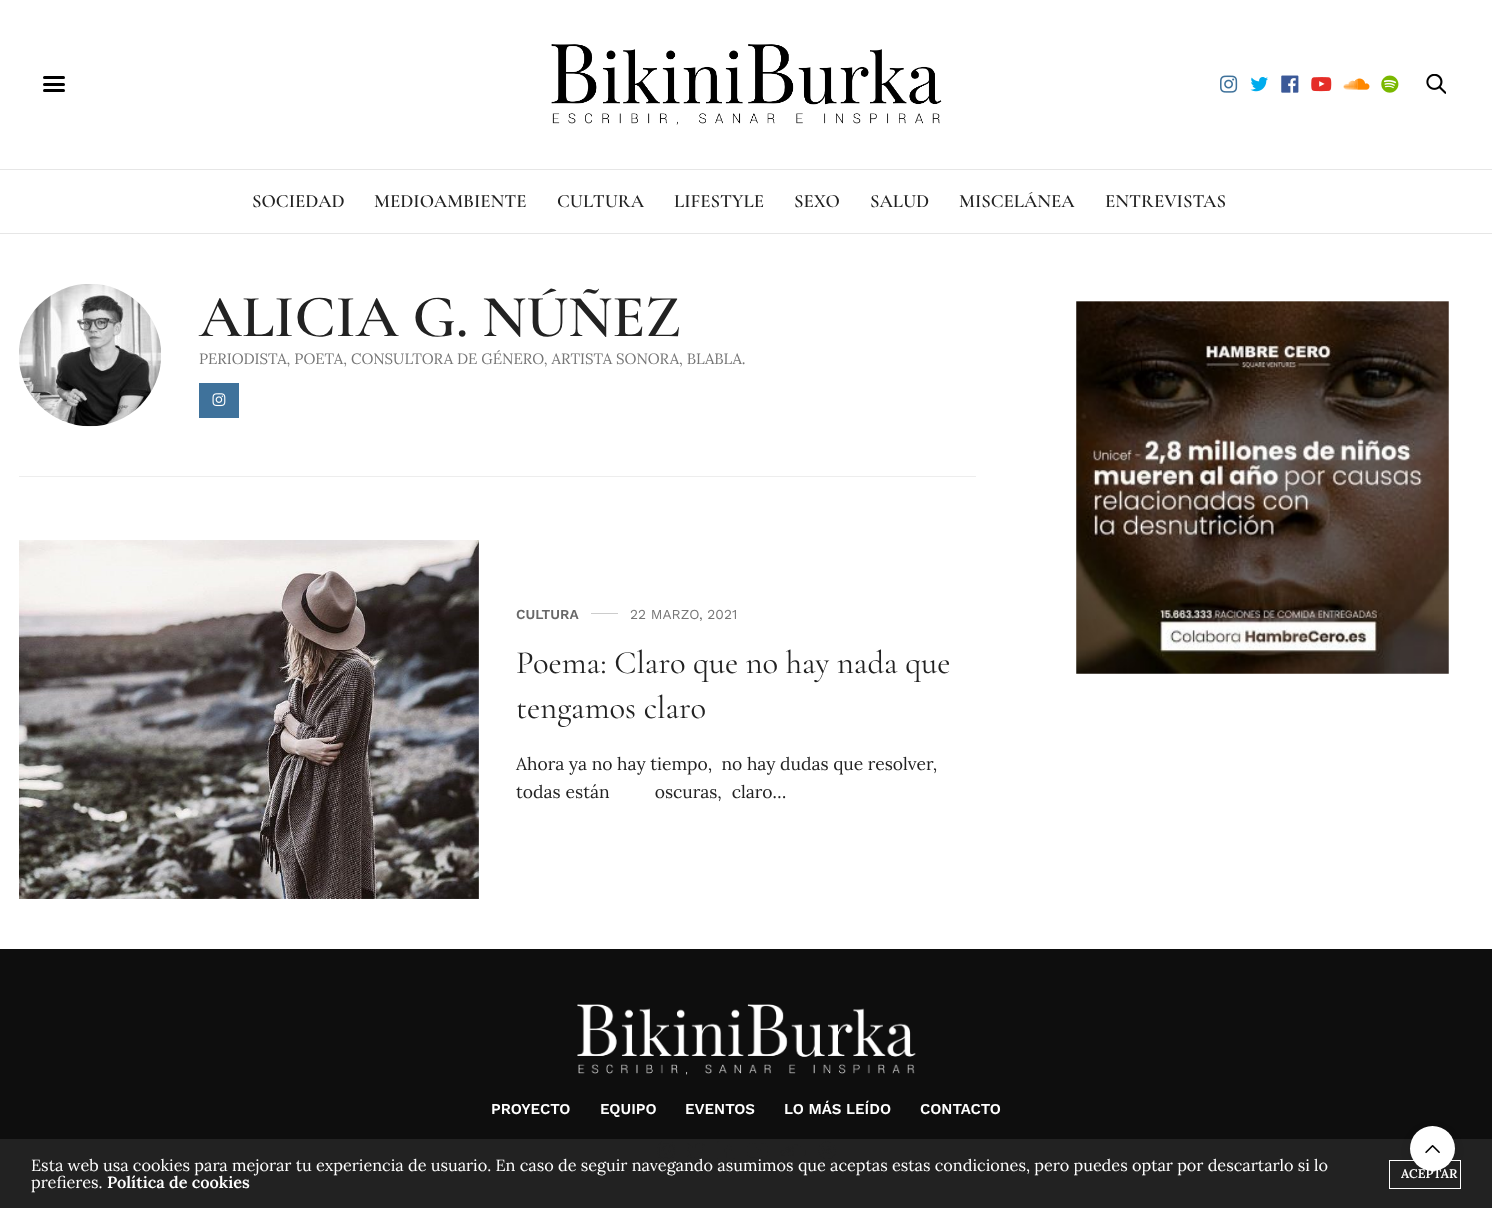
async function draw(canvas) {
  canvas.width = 1492
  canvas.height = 1208
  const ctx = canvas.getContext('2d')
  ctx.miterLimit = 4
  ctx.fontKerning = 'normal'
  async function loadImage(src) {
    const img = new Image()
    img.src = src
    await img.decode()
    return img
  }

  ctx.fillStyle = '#fff'
  ctx.fillRect(0, 0, 1492, 1208)
  ctx.fillStyle = '#e6e6e6'
  ctx.fillRect(0, 169, 1492, 1)
  ctx.fillStyle = '#000'
  ctx.beginPath()
  ctx.roundRect(43, 76, 22, 3, 1.5)
  ctx.fill()
  ctx.beginPath()
  ctx.roundRect(43, 83, 22, 3, 1.5)
  ctx.fill()
  ctx.beginPath()
  ctx.roundRect(43, 89, 22, 3, 1.5)
  ctx.fill()
  ctx.drawImage(await loadImage('image0.png'), 551, 44, 391, 81)
  ctx.drawImage(await loadImage('image1.png'), 1220, 75, 18, 18)
  ctx.drawImage(await loadImage('image2.png'), 1250, 77, 18, 15)
  ctx.drawImage(await loadImage('image3.png'), 1281, 75, 18, 18)
  ctx.drawImage(await loadImage('image4.png'), 1311, 77, 21, 15)
  ctx.drawImage(await loadImage('image5.png'), 1343, 78, 27, 12)
  ctx.drawImage(await loadImage('image6.png'), 1381, 75, 18, 18)
  ctx.drawImage(await loadImage('image7.png'), 1426, 74, 20, 20)
  ctx.fillStyle = '#e6e6e6'
  ctx.fillRect(0, 233, 1492, 1)
  ctx.font = '600 18.75px Cormorant Garamond'
  ctx.fillStyle = '#222'
  ctx.fillText('SOCIEDAD', 252, 207)
  ctx.fillText('MEDIOAMBIENTE', 374, 207)
  ctx.fillText('CULTURA', 557, 207)
  ctx.fillText('LIFESTYLE', 674, 207)
  ctx.fillText('SEXO', 794, 207)
  ctx.fillText('SALUD', 870, 207)
  ctx.fillText('MISCELÁNEA', 959, 207)
  ctx.fillText('ENTREVISTAS', 1105, 207)
  ctx.fillStyle = '#ededed'
  ctx.fillRect(19, 476, 957, 1)
  ctx.drawImage(await loadImage('image8.png'), 19, 284, 142, 143)
  ctx.font = '600 60px Cormorant Garamond'
  ctx.fillStyle = '#222'
  ctx.fillText('ALICIA G. NÚÑEZ', 199, 336)
  ctx.font = '15px Lora'
  ctx.fillStyle = '#767676'
  ctx.fillText('PERIODISTA, POETA, CONSULTORA DE GÉNERO, ARTISTA SONORA, BLABLA.', 199, 364)
  ctx.fillStyle = '#3f729b'
  ctx.fillRect(199, 383, 40, 35)
  ctx.drawImage(await loadImage('image9.png'), 212, 393, 14, 14)
  ctx.drawImage(await loadImage('image10.png'), 19, 540, 460, 359)
  ctx.font = '600 13.75px Work Sans'
  ctx.fillStyle = '#686868'
  ctx.fillText('CULTURA', 516, 619)
  ctx.fillStyle = '#ccc'
  ctx.fillRect(591, 613, 27, 1)
  ctx.font = '13.75px Work Sans'
  ctx.fillStyle = '#767676'
  ctx.fillText('22 MARZO, 2021', 630, 619)
  ctx.font = '32.5px Cormorant Garamond'
  ctx.fillStyle = '#222'
  ctx.fillText('Poema: Claro que no hay nada que', 516, 673)
  ctx.fillText('tengamos claro', 516, 718)
  ctx.font = '17.5px Lora'
  ctx.fillText('Ahora ya no hay tiempo,  no hay dudas que resolver,', 516, 770)
  ctx.wordSpacing = '0.4px'
  ctx.fillText('todas están         oscuras,  claro…', 516, 798)
  ctx.drawImage(await loadImage('image11.png'), 1076, 301, 373, 373)
  ctx.fillStyle = '#0e0e0e'
  ctx.fillRect(0, 949, 1492, 190)
  ctx.fillStyle = '#222'
  ctx.fillRect(0, 1139, 1492, 69)
  ctx.drawImage(await loadImage('image12.png'), 577, 1004, 339, 71)
  ctx.wordSpacing = '0px'
  ctx.font = '600 15px Work Sans'
  ctx.fillStyle = '#fff'
  ctx.fillText('PROYECTO', 491, 1114)
  ctx.fillText('EQUIPO', 600, 1114)
  ctx.fillText('EVENTOS', 685, 1114)
  ctx.fillText('LO MÁS LEÍDO', 784, 1114)
  ctx.fillText('CONTACTO', 920, 1114)
  ctx.drawImage(await loadImage('image13.png'), 657, 1141, 18, 18)
  ctx.drawImage(await loadImage('image14.png'), 686, 1143, 19, 15)
  ctx.drawImage(await loadImage('image15.png'), 717, 1141, 18, 18)
  ctx.drawImage(await loadImage('image16.png'), 747, 1143, 21, 15)
  ctx.drawImage(await loadImage('image17.png'), 780, 1144, 26, 12)
  ctx.drawImage(await loadImage('image18.png'), 818, 1141, 18, 18)
  ctx.strokeStyle = '#fff'
  ctx.strokeRect(1389.5, 1160.5, 71, 28)
  ctx.fillStyle = '#0000001a'
  ctx.filter = 'blur(5px)'
  ctx.beginPath()
  ctx.roundRect(1410, 1129, 45, 45, 22.5)
  ctx.fill()
  ctx.filter = 'none'
  ctx.fillStyle = '#fff'
  ctx.beginPath()
  ctx.arc(1432.5, 1148.5, 22.5, 0, 2 * Math.PI)
  ctx.fill()
  ctx.drawImage(await loadImage('image19.png'), 1425, 1145, 15, 9)
  ctx.font = '16.25px Lora'
  ctx.fillText('Esta web usa cookies para mejorar tu experiencia de usuario. En caso de seguir navegando asumimos que aceptas estas condiciones, pero puedes optar por descartarlo si lo', 31, 1171)
  ctx.fillText('prefieres.', 31, 1188)
  ctx.font = '600 16.25px Lora'
  ctx.fillText('Política de cookies', 107, 1188)
  ctx.font = '600 12.5px Lora'
  ctx.fillText('ACEPTAR', 1401, 1178)
}

draw(document.querySelector('canvas'))
